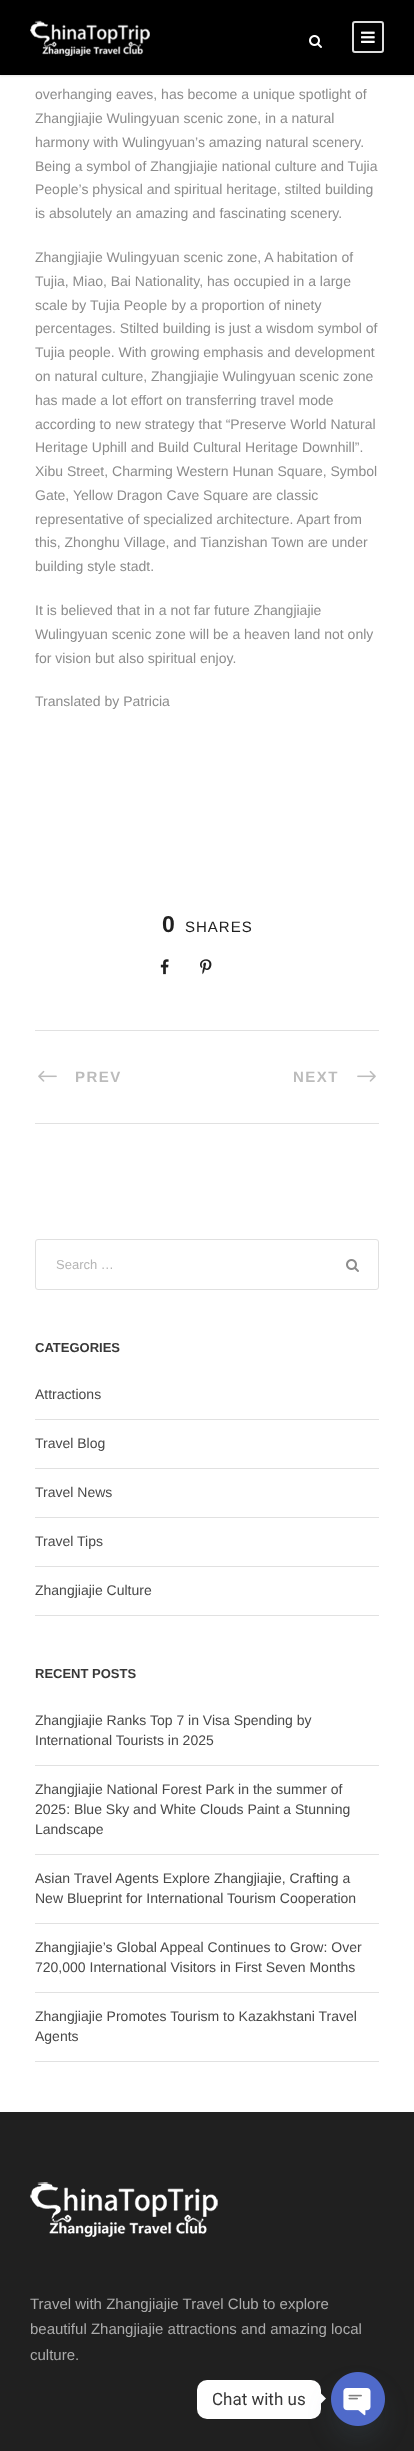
async function draw(canvas) {
  canvas.width = 414
  canvas.height = 2451
  const ctx = canvas.getContext('2d')
  ctx.miterLimit = 4
  ctx.fontKerning = 'normal'
  async function loadImage(src) {
    const img = new Image()
    img.src = src
    await img.decode()
    return img
  }

  ctx.fillStyle = '#fff'
  ctx.fillRect(0, 0, 414, 2451)
  ctx.fillStyle = '#0000001a'
  ctx.filter = 'blur(1px)'
  ctx.beginPath()
  ctx.rect(0, 1, 414, 75)
  ctx.fill()
  ctx.filter = 'none'
  ctx.fillStyle = '#000'
  ctx.fillRect(0, 0, 414, 75)
  ctx.drawImage(await loadImage('image0.png'), 30, 20, 120, 36)
  ctx.drawImage(await loadImage('image1.png'), 309, 35, 13, 13)
  ctx.beginPath()
  ctx.roundRect(353, 22, 30, 30, 2)
  ctx.strokeStyle = '#ddd'
  ctx.lineWidth = 2
  ctx.stroke()
  ctx.drawImage(await loadImage('image2.png'), 361, 31, 14, 12)
  ctx.font = '14px Liberation Sans'
  ctx.fillStyle = '#8c8c8c'
  ctx.fillText('overhanging eaves, has become a unique spotlight of', 35, 99)
  ctx.fillText('Zhangjiajie Wulingyuan scenic zone, in a natural', 35, 123)
  ctx.fillText('harmony with Wulingyuan’s amazing natural scenery.', 35, 147)
  ctx.fillText('Being a symbol of Zhangjiajie national culture and Tujia', 35, 171)
  ctx.fillText('People’s physical and spiritual heritage, stilted building', 35, 194)
  ctx.fillText('is absolutely an amazing and fascinating scenery.', 35, 218)
  ctx.fillText('Zhangjiajie Wulingyuan scenic zone, A habitation of', 35, 262)
  ctx.fillText('Tujia, Miao, Bai Nationality, has occupied in a large', 35, 286)
  ctx.fillText('scale by Tujia People by a proportion of ninety', 35, 310)
  ctx.fillText('percentages. Stilted building is just a wisdom symbol of', 35, 333)
  ctx.fillText('Tujia people. With growing emphasis and development', 35, 357)
  ctx.fillText('on natural culture, Zhangjiajie Wulingyuan scenic zone', 35, 381)
  ctx.fillText('has made a lot effort on transferring travel mode', 35, 405)
  ctx.fillText('according to new strategy that “Preserve World Natural', 35, 429)
  ctx.fillText('Heritage Uphill and Build Cultural Heritage Downhill”.', 35, 452)
  ctx.fillText('Xibu Street, Charming Western Hunan Square, Symbol', 35, 476)
  ctx.fillText('Gate, Yellow Dragon Cave Square are classic', 35, 500)
  ctx.fillText('representative of specialized architecture. Apart from', 35, 524)
  ctx.fillText('this, Zhonghu Village, and Tianzishan Town are under', 35, 547)
  ctx.fillText('building style stadt.', 35, 571)
  ctx.fillText('It is believed that in a not far future Zhangjiajie', 35, 615)
  ctx.fillText('Wulingyuan scenic zone will be a heaven land not only', 35, 639)
  ctx.fillText('for vision but also spiritual enjoy.', 35, 663)
  ctx.fillText('Translated by Patricia', 35, 706)
  ctx.font = 'bold 23px Liberation Sans'
  ctx.fillStyle = '#202020'
  ctx.fillText('0', 162, 932)
  ctx.letterSpacing = '1px'
  ctx.font = '15px Liberation Sans'
  ctx.fillText('SHARES', 185, 932)
  ctx.drawImage(await loadImage('image3.png'), 160, 959, 9, 16)
  ctx.drawImage(await loadImage('image4.png'), 200, 959, 12, 16)
  ctx.fillStyle = '#e1e1e1'
  ctx.fillRect(35, 1030, 344, 1)
  ctx.fillRect(35, 1123, 344, 1)
  ctx.drawImage(await loadImage('image5.png'), 38, 1070, 19, 12)
  ctx.letterSpacing = '1.5px'
  ctx.font = 'bold 15px Liberation Sans'
  ctx.fillStyle = '#bcbcbc'
  ctx.fillText('PREV', 75, 1082)
  ctx.fillText('NEXT', 293, 1082)
  ctx.drawImage(await loadImage('image6.png'), 357, 1070, 19, 12)
  ctx.beginPath()
  ctx.roundRect(35.5, 1239.5, 343, 50, 2.5)
  ctx.strokeStyle = '#e0e0e0'
  ctx.lineWidth = 1
  ctx.stroke()
  ctx.letterSpacing = '0px'
  ctx.font = '13px Liberation Sans'
  ctx.fillStyle = '#b5b5b5'
  ctx.fillText('Search …', 56, 1269)
  ctx.drawImage(await loadImage('image7.png'), 346, 1259, 13, 13)
  ctx.font = 'bold 13px Liberation Sans'
  ctx.fillStyle = '#383838'
  ctx.fillText('CATEGORIES', 35, 1352)
  ctx.fillStyle = '#e1e1e1'
  ctx.fillRect(35, 1419, 344, 1)
  ctx.font = '14px Liberation Sans'
  ctx.fillStyle = '#484848'
  ctx.fillText('Attractions', 35, 1399)
  ctx.fillStyle = '#e1e1e1'
  ctx.fillRect(35, 1468, 344, 1)
  ctx.fillStyle = '#484848'
  ctx.fillText('Travel Blog', 35, 1448)
  ctx.fillStyle = '#e1e1e1'
  ctx.fillRect(35, 1517, 344, 1)
  ctx.fillStyle = '#484848'
  ctx.fillText('Travel News', 35, 1497)
  ctx.fillStyle = '#e1e1e1'
  ctx.fillRect(35, 1566, 344, 1)
  ctx.fillStyle = '#484848'
  ctx.fillText('Travel Tips', 35, 1546)
  ctx.fillStyle = '#e1e1e1'
  ctx.fillRect(35, 1615, 344, 1)
  ctx.fillStyle = '#484848'
  ctx.fillText('Zhangjiajie Culture', 35, 1595)
  ctx.font = 'bold 13px Liberation Sans'
  ctx.fillStyle = '#383838'
  ctx.fillText('RECENT POSTS', 35, 1678)
  ctx.fillStyle = '#e1e1e1'
  ctx.fillRect(35, 1765, 344, 1)
  ctx.font = '14px Liberation Sans'
  ctx.fillStyle = '#484848'
  ctx.fillText('Zhangjiajie Ranks Top 7 in Visa Spending by', 35, 1725)
  ctx.fillText('International Tourists in 2025', 35, 1745)
  ctx.fillStyle = '#e1e1e1'
  ctx.fillRect(35, 1854, 344, 1)
  ctx.fillStyle = '#484848'
  ctx.fillText('Zhangjiajie National Forest Park in the summer of', 35, 1794)
  ctx.fillText('2025: Blue Sky and White Clouds Paint a Stunning', 35, 1814)
  ctx.fillText('Landscape', 35, 1834)
  ctx.fillStyle = '#e1e1e1'
  ctx.fillRect(35, 1923, 344, 1)
  ctx.fillStyle = '#484848'
  ctx.fillText('Asian Travel Agents Explore Zhangjiajie, Crafting a', 35, 1883)
  ctx.fillText('New Blueprint for International Tourism Cooperation', 35, 1903)
  ctx.fillStyle = '#e1e1e1'
  ctx.fillRect(35, 1992, 344, 1)
  ctx.fillStyle = '#484848'
  ctx.fillText('Zhangjiajie’s Global Appeal Continues to Grow: Over', 35, 1952)
  ctx.fillText('720,000 International Visitors in First Seven Months', 35, 1972)
  ctx.fillStyle = '#e1e1e1'
  ctx.fillRect(35, 2061, 344, 1)
  ctx.fillStyle = '#484848'
  ctx.fillText('Zhangjiajie Promotes Tourism to Kazakhstani Travel', 35, 2021)
  ctx.fillText('Agents', 35, 2041)
  ctx.fillStyle = '#202020'
  ctx.fillRect(0, 2112, 414, 339)
  ctx.drawImage(await loadImage('image8.png'), 30, 2182, 188, 55)
  ctx.font = '15px Liberation Sans'
  ctx.fillStyle = '#ababab'
  ctx.fillText('Travel with Zhangjiajie Travel Club to explore', 30, 2309)
  ctx.fillText('beautiful Zhangjiajie attractions and amazing local', 30, 2334)
  ctx.fillText('culture.', 30, 2360)
  ctx.fillStyle = '#fff'
  ctx.beginPath()
  ctx.roundRect(197, 2380, 124, 39, 10)
  ctx.fill()
  ctx.font = '17px Roboto'
  ctx.fillStyle = '#383838'
  ctx.fillText('Chat with us', 212, 2405)
  ctx.fillStyle = '#fff'
  ctx.beginPath()
  ctx.moveTo(321, 2403.5)
  ctx.lineTo(321, 2393.5)
  ctx.lineTo(326, 2398.5)
  ctx.closePath()
  ctx.fill()
  ctx.fillStyle = '#49687e29'
  ctx.filter = 'blur(12px)'
  ctx.beginPath()
  ctx.roundRect(331, 2388, 54, 54, 27)
  ctx.fill()
  ctx.filter = 'none'
  ctx.drawImage(await loadImage('image9.png'), 331, 2372, 54, 54)
}

draw(document.querySelector('canvas'))
